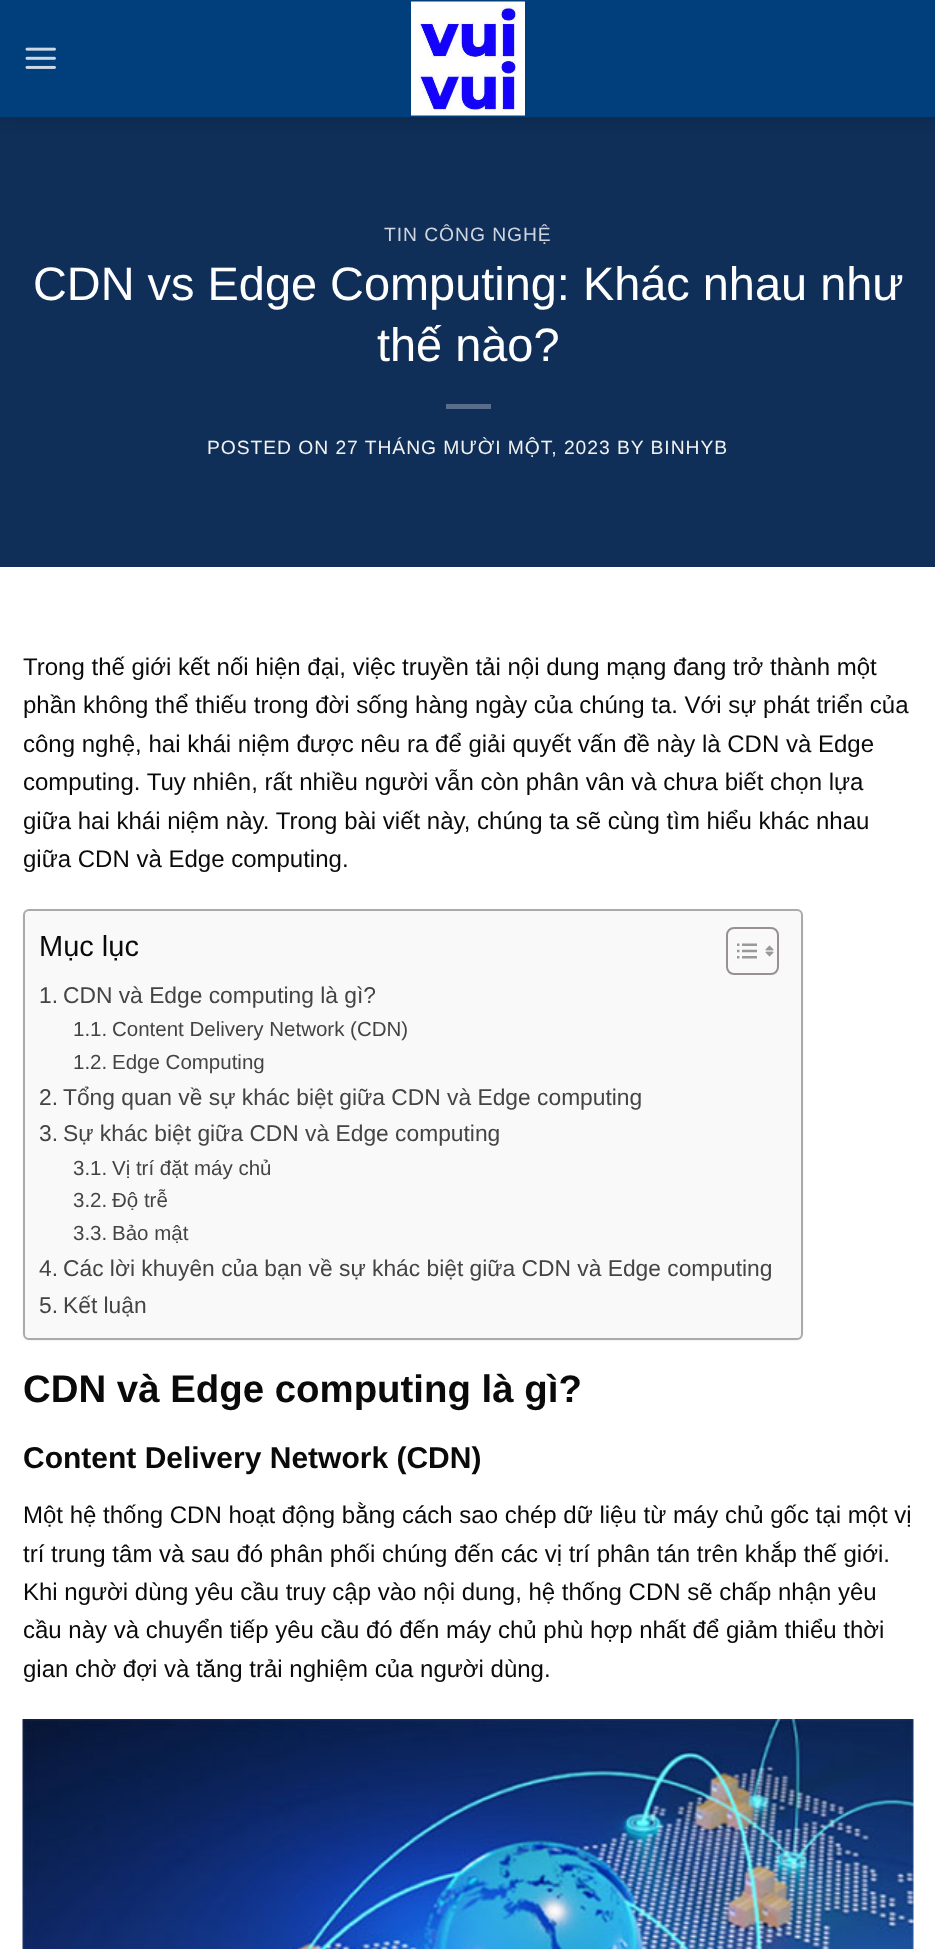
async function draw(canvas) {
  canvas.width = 935
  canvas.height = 1949
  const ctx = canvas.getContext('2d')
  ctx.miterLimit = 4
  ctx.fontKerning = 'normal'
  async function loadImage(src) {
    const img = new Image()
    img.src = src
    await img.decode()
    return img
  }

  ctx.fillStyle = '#fff'
  ctx.fillRect(0, 0, 935, 1949)
  ctx.fillStyle = '#0f2f58'
  ctx.fillRect(0, 117, 935, 450)
  ctx.fillStyle = '#00000026'
  ctx.filter = 'blur(7.5px)'
  ctx.beginPath()
  ctx.rect(2, 2, 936, 117)
  ctx.fill()
  ctx.filter = 'none'
  ctx.fillStyle = '#003e7c'
  ctx.fillRect(0, 0, 935, 117)
  ctx.drawImage(await loadImage('image0.png'), 25, 47, 31, 22)
  ctx.drawImage(await loadImage('image1.png'), 411, 1, 114, 115)
  ctx.letterSpacing = '0.95px'
  ctx.font = '19.3px Liberation Sans'
  ctx.fillStyle = '#cfd5de'
  ctx.fillText('TIN CÔNG NGHỆ', 384, 241)
  ctx.letterSpacing = '0px'
  ctx.font = '46.9px Liberation Sans'
  ctx.fillStyle = '#fff'
  ctx.fillText('CDN vs Edge Computing: Khác nhau như', 33, 300)
  ctx.fillText('thế nào?', 377, 361)
  ctx.fillStyle = '#576d8a'
  ctx.fillRect(446, 404, 45, 5)
  ctx.letterSpacing = '0.95px'
  ctx.font = '19.3px Liberation Sans'
  ctx.fillStyle = '#f1f1f1'
  ctx.fillText('POSTED ON 27 THÁNG MƯỜI MỘT, 2023 BY BINHYB', 207, 454)
  ctx.letterSpacing = '0px'
  ctx.font = '24px Liberation Sans'
  ctx.fillStyle = '#0a0a0a'
  ctx.fillText('Trong thế giới kết nối hiện đại, việc truyền tải nội dung mạng đang trở thành một', 23, 675)
  ctx.fillText('phần không thể thiếu trong đời sống hàng ngày của chúng ta. Với sự phát triển của', 23, 713)
  ctx.fillText('công nghệ, hai khái niệm được nêu ra để giải quyết vấn đề này là CDN và Edge', 23, 752)
  ctx.fillText('computing. Tuy nhiên, rất nhiều người vẫn còn phân vân và chưa biết chọn lựa', 23, 790)
  ctx.fillText('giữa hai khái niệm này. Trong bài viết này, chúng ta sẽ cùng tìm hiểu khác nhau', 23, 829)
  ctx.fillText('giữa CDN và Edge computing.', 23, 867)
  ctx.fillStyle = '#0000000d'
  ctx.filter = 'blur(1px)'
  ctx.beginPath()
  ctx.roundRect(23, 911, 780, 430, 6)
  ctx.fill()
  ctx.filter = 'none'
  ctx.fillStyle = '#f9f9f9'
  ctx.beginPath()
  ctx.roundRect(24, 910, 778, 429, 5)
  ctx.fill()
  ctx.strokeStyle = '#aaa'
  ctx.lineWidth = 2
  ctx.stroke()
  ctx.font = '29px Liberation Sans'
  ctx.fillStyle = '#0a0a0a'
  ctx.fillText('Mục lục', 39, 956)
  ctx.beginPath()
  ctx.roundRect(727, 928, 51, 46, 7)
  ctx.strokeStyle = '#999191'
  ctx.stroke()
  ctx.drawImage(await loadImage('image2.png'), 737, 943, 20, 16)
  ctx.drawImage(await loadImage('image3.png'), 765, 945, 9, 12)
  ctx.font = '22.8px Liberation Sans'
  ctx.fillStyle = '#444'
  ctx.fillText('1.', 39, 1003)
  ctx.fillText('CDN và Edge computing là gì?', 63, 1003)
  ctx.font = '20.5px Liberation Sans'
  ctx.fillText('1.1.', 73, 1036)
  ctx.fillText('Content Delivery Network (CDN)', 112, 1036)
  ctx.fillText('1.2.', 73, 1069)
  ctx.fillText('Edge Computing', 112, 1069)
  ctx.font = '22.8px Liberation Sans'
  ctx.fillText('2.', 39, 1105)
  ctx.fillText('Tổng quan về sự khác biệt giữa CDN và Edge computing', 63, 1105)
  ctx.fillText('3.', 39, 1141)
  ctx.fillText('Sự khác biệt giữa CDN và Edge computing', 63, 1141)
  ctx.font = '20.5px Liberation Sans'
  ctx.fillText('3.1.', 73, 1175)
  ctx.fillText('Vị trí đặt máy chủ', 112, 1175)
  ctx.fillText('3.2.', 73, 1207)
  ctx.fillText('Độ trễ', 112, 1207)
  ctx.fillText('3.3.', 73, 1240)
  ctx.fillText('Bảo mật', 112, 1240)
  ctx.font = '22.8px Liberation Sans'
  ctx.fillText('4.', 39, 1276)
  ctx.fillText('Các lời khuyên của bạn về sự khác biệt giữa CDN và Edge computing', 63, 1276)
  ctx.fillText('5.', 39, 1313)
  ctx.fillText('Kết luận', 63, 1313)
  ctx.font = 'bold 38.4px Liberation Sans'
  ctx.fillStyle = '#0a0a0a'
  ctx.fillText('CDN và Edge computing là gì?', 23, 1402)
  ctx.font = 'bold 30px Liberation Sans'
  ctx.fillText('Content Delivery Network (CDN)', 23, 1468)
  ctx.font = '24px Liberation Sans'
  ctx.fillText('Một hệ thống CDN hoạt động bằng cách sao chép dữ liệu từ máy chủ gốc tại một vị', 23, 1523)
  ctx.fillText('trí trung tâm và sau đó phân phối chúng đến các vị trí phân tán trên khắp thế giới.', 23, 1562)
  ctx.fillText('Khi người dùng yêu cầu truy cập vào nội dung, hệ thống CDN sẽ chấp nhận yêu', 23, 1600)
  ctx.fillText('cầu này và chuyển tiếp yêu cầu đó đến máy chủ phù hợp nhất để giảm thiểu thời', 23, 1638)
  ctx.fillText('gian chờ đợi và tăng trải nghiệm của người dùng.', 23, 1677)
  ctx.drawImage(await loadImage('image4.png'), 22, 1719, 892, 230)
}

draw(document.querySelector('canvas'))
